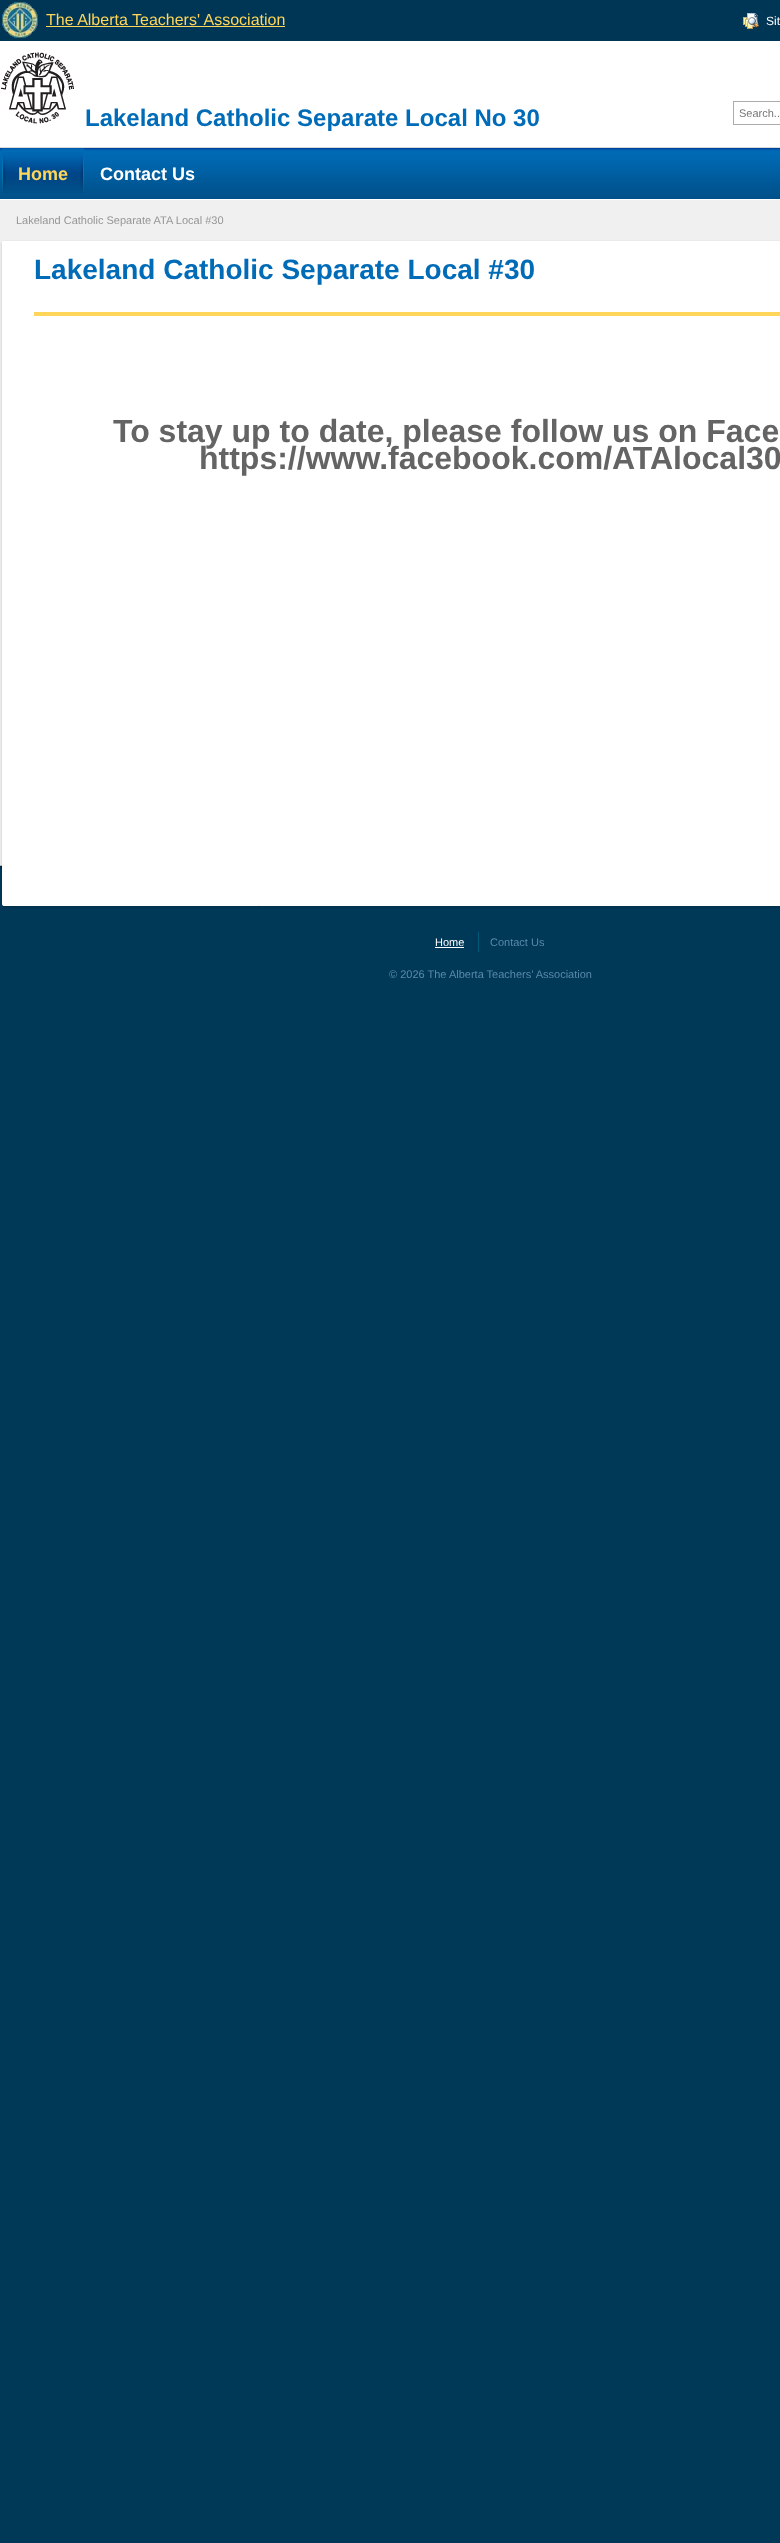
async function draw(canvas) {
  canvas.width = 780
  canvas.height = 2543
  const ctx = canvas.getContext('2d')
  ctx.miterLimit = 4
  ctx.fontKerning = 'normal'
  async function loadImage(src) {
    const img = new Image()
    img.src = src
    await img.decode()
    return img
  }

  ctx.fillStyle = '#003858'
  ctx.fillRect(0, 0, 780, 2543)
  ctx.fillStyle = '#003655'
  ctx.fillRect(0, 0, 780, 41)
  ctx.drawImage(await loadImage('image0.png'), 2, 2, 36, 36)
  ctx.font = '16px Liberation Sans'
  ctx.fillStyle = '#ffd65a'
  ctx.fillText('The Alberta Teachers\' Association', 46, 25)
  ctx.fillRect(46, 26, 239, 1)
  ctx.drawImage(await loadImage('image1.png'), 743, 13, 16, 16)
  ctx.font = '12px Liberation Sans'
  ctx.fillStyle = '#fff'
  ctx.fillText('Sit', 766, 25)
  ctx.fillRect(0, 41, 780, 106)
  ctx.fillStyle = '#d9d9d9'
  ctx.fillRect(0, 147, 780, 1)
  ctx.drawImage(await loadImage('image2.png'), 1, 52, 73, 72)
  ctx.font = 'bold 24px Liberation Sans'
  ctx.fillStyle = '#006bb7'
  ctx.fillText('Lakeland Catholic Separate Local No 30', 85, 126)
  ctx.strokeStyle = '#ababab'
  ctx.strokeRect(733.5, 101.5, 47, 23)
  ctx.font = '11px Liberation Sans'
  ctx.fillStyle = '#777'
  ctx.fillText('Search..', 739, 117)
  ctx.drawImage(await loadImage('image3.png'), 0, 148, 780, 51)
  ctx.drawImage(await loadImage('image4.png'), 2, 148, 16, 46)
  ctx.drawImage(await loadImage('image5.png'), 18, 148, 66, 46)
  ctx.font = 'bold 18px Liberation Sans'
  ctx.fillStyle = '#ffd65a'
  ctx.fillText('Home', 18, 180)
  ctx.fillStyle = '#fff'
  ctx.fillText('Contact Us', 100, 180)
  ctx.fillStyle = '#f0f0f0'
  ctx.fillRect(0, 200, 780, 40)
  ctx.fillStyle = '#fff'
  ctx.fillRect(0, 199, 780, 1)
  ctx.font = '11px Liberation Sans'
  ctx.fillStyle = '#969696'
  ctx.fillText('Lakeland Catholic Separate ATA Local #30', 16, 224)
  ctx.drawImage(await loadImage('image6.png'), 0, 243, 780, 622)
  ctx.drawImage(await loadImage('image7.png'), 0, 240, 780, 3)
  ctx.drawImage(await loadImage('image8.png'), 0, 865, 780, 44)
  ctx.fillStyle = '#ffd65a'
  ctx.fillRect(34, 312, 746, 4)
  ctx.font = 'bold 28px Liberation Sans'
  ctx.fillStyle = '#006bb7'
  ctx.fillText('Lakeland Catholic Separate Local #30', 34, 279)
  ctx.font = 'bold 32px Liberation Sans'
  ctx.fillStyle = '#646464'
  ctx.fillText('To stay up to date, please follow us on Face', 113, 442)
  ctx.fillText('https://www.facebook.com/ATAlocal30', 199, 469)
  ctx.font = '11px Liberation Sans'
  ctx.fillStyle = '#fff'
  ctx.fillText('Home', 435, 946)
  ctx.fillRect(435, 947, 29, 1)
  ctx.fillStyle = '#5a88ab'
  ctx.fillText('Contact Us', 490, 946)
  ctx.fillStyle = '#005877'
  ctx.fillRect(478, 932, 1, 20)
  ctx.fillStyle = '#5a88ab'
  ctx.fillText('© 2026 The Alberta Teachers’ Association', 389, 978)
}

draw(document.querySelector('canvas'))
